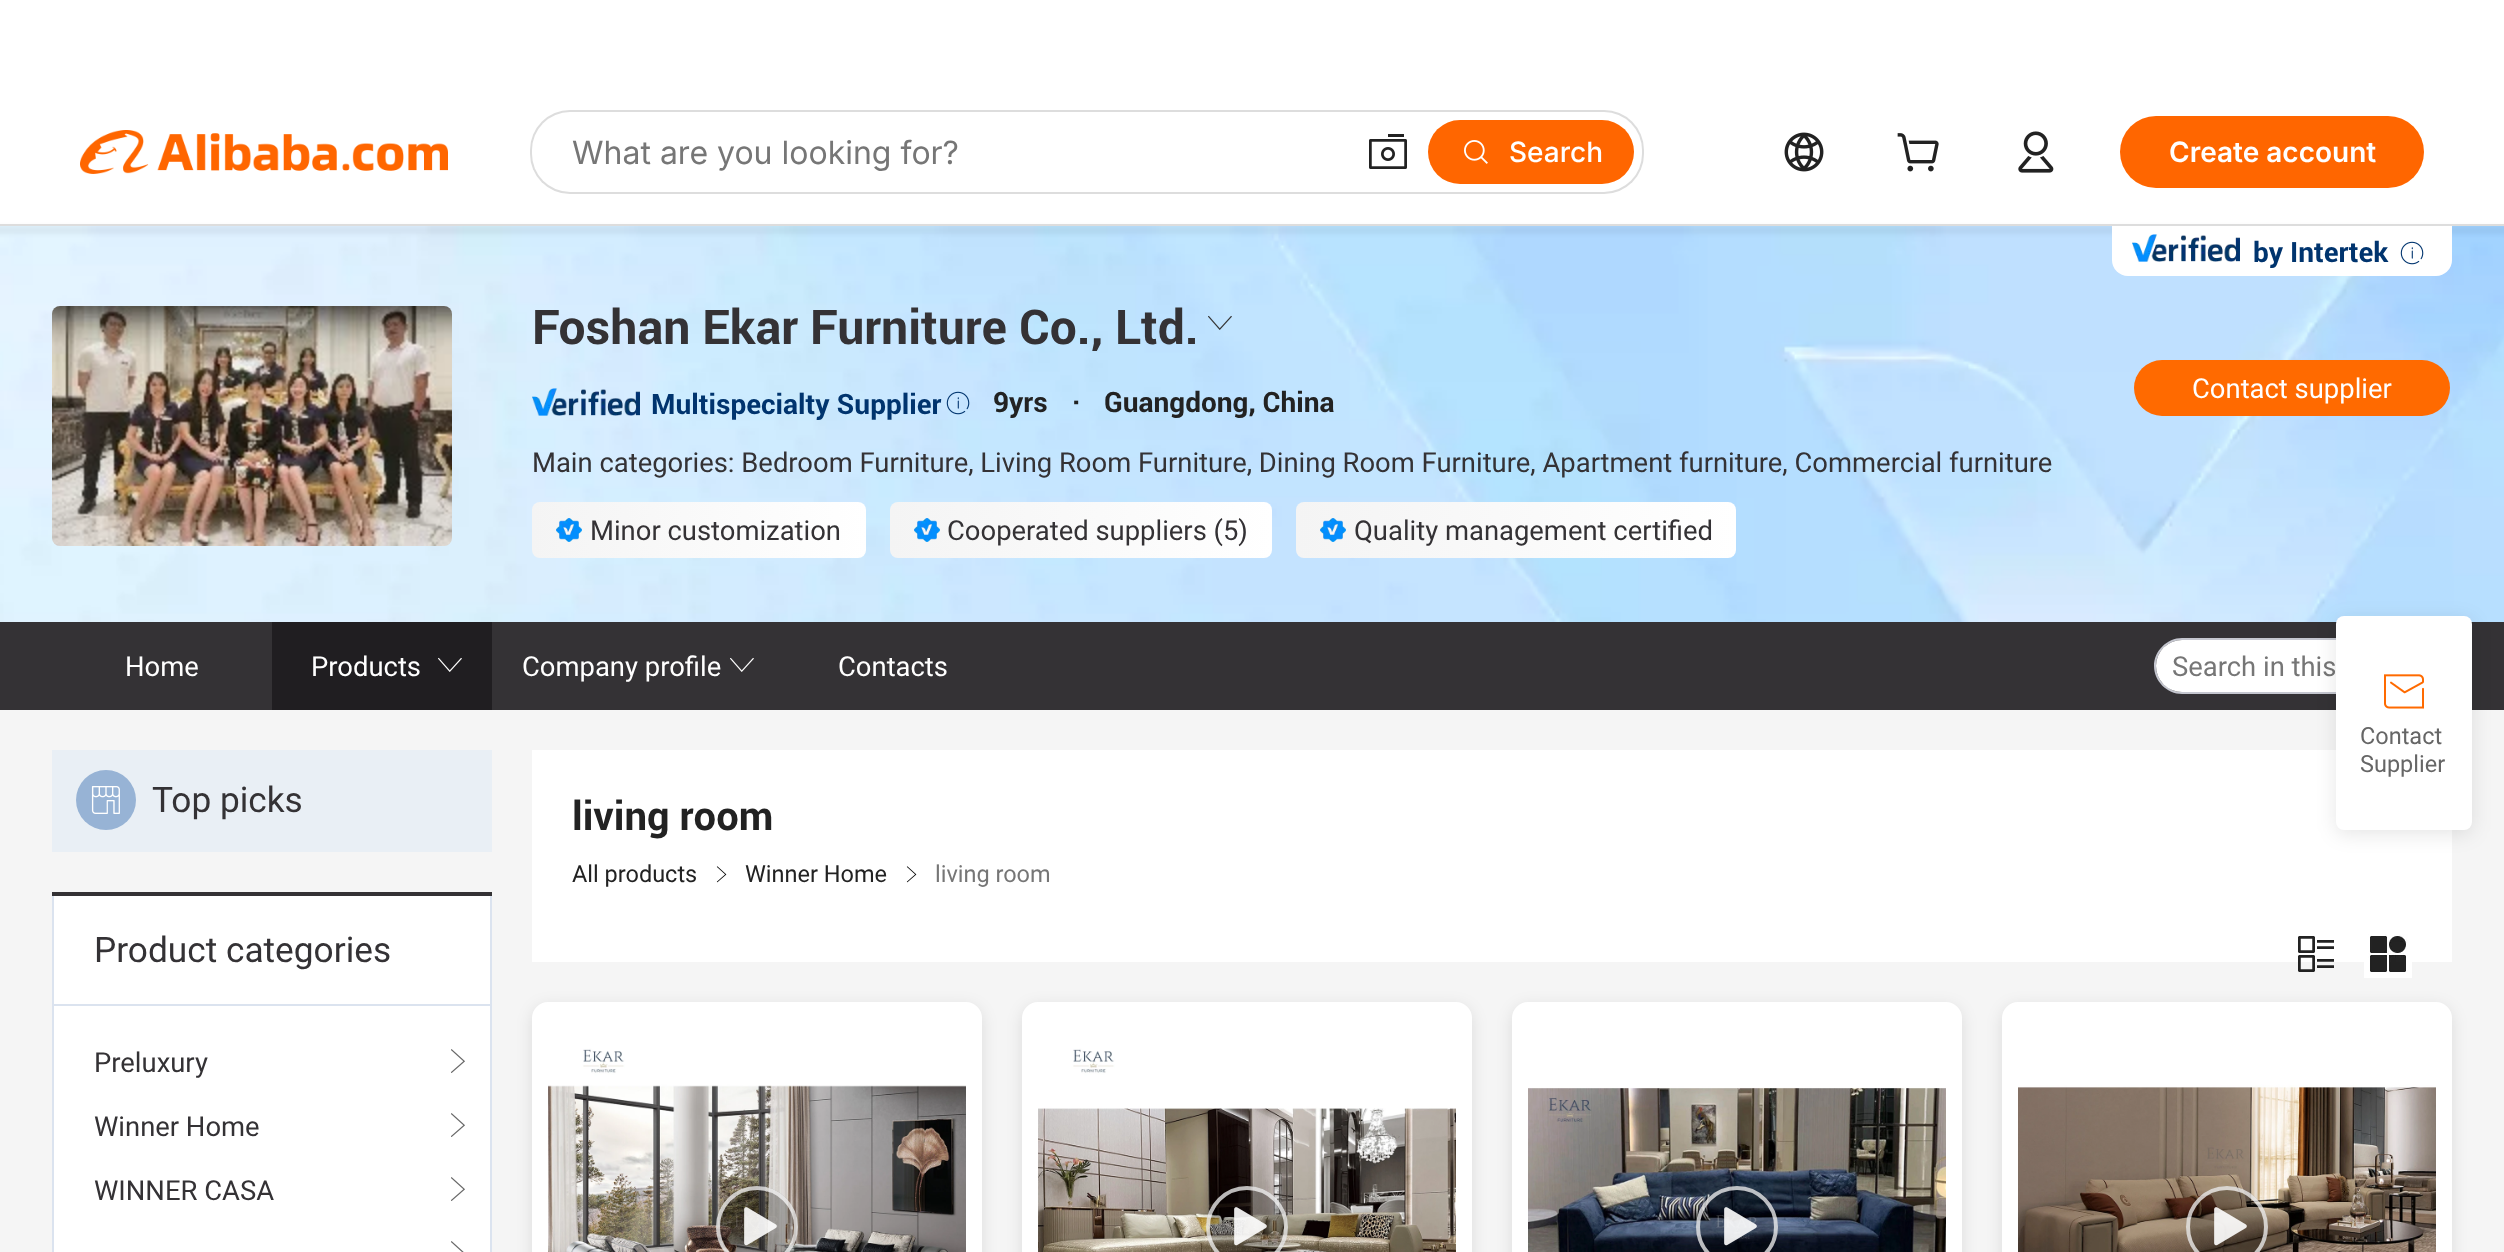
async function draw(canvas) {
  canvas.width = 2504
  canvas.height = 1252
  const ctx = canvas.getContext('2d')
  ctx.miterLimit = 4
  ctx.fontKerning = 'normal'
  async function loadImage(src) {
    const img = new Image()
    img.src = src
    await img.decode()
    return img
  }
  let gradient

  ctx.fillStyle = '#fff'
  ctx.fillRect(0, 0, 2504, 1252)
  ctx.drawImage(await loadImage('image6.png'), 0, 226, 2504, 396)
  ctx.fillStyle = '#0000000d'
  ctx.filter = 'blur(2px)'
  ctx.beginPath()
  ctx.rect(-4, 226, 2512, 8)
  ctx.fill()
  ctx.filter = 'none'
  ctx.fillStyle = '#ddd'
  ctx.fillRect(0, 224, 2504, 2)
  ctx.drawImage(await loadImage('image0.png'), 80, 130, 368, 44)
  ctx.beginPath()
  ctx.roundRect(530, 110, 1114, 84, 40)
  ctx.fill()
  ctx.fillStyle = '#fff'
  ctx.beginPath()
  ctx.roundRect(532, 112, 1110, 80, 38)
  ctx.fill()
  ctx.font = '32px Inter'
  ctx.fillStyle = '#767676'
  ctx.fillText('What are you looking for?', 572, 164)
  ctx.drawImage(await loadImage('image1.png'), 1369, 134, 38, 35)
  ctx.fillStyle = '#f60'
  ctx.beginPath()
  ctx.roundRect(1428, 120, 206, 64, 32)
  ctx.fill()
  ctx.drawImage(await loadImage('image2.png'), 1464, 140, 24, 24)
  ctx.font = '500 28px Inter'
  ctx.fillStyle = '#fff'
  ctx.fillText('Search', 1509, 162)
  ctx.drawImage(await loadImage('image3.png'), 1784, 132, 40, 40)
  ctx.drawImage(await loadImage('image4.png'), 1897, 133, 42, 39)
  ctx.drawImage(await loadImage('image5.png'), 2018, 131, 36, 42)
  ctx.fillStyle = '#f60'
  ctx.beginPath()
  ctx.roundRect(2120, 116, 304, 72, 36)
  ctx.fill()
  ctx.font = '600 28px Inter'
  ctx.fillStyle = '#fff'
  ctx.fillText('Create account', 2169, 162)
  ctx.beginPath()
  ctx.roundRect(2112, 226, 340, 50, [0, 0, 16, 16])
  ctx.fill()
  ctx.drawImage(await loadImage('image7.png'), 2132, 234, 108, 28)
  ctx.font = 'bold 28px Roboto'
  ctx.fillStyle = '#00346e'
  ctx.fillText('by Intertek', 2253, 262)
  ctx.drawImage(await loadImage('image8.png'), 2400, 241, 24, 24)
  ctx.drawImage(await loadImage('image9.png'), 52, 306, 400, 240)
  ctx.font = 'bold 48px Roboto'
  ctx.fillStyle = '#343235'
  ctx.fillText('Foshan Ekar Furniture Co., Ltd.', 532, 344)
  ctx.drawImage(await loadImage('image10.png'), 1208, 315, 24, 15)
  ctx.drawImage(await loadImage('image11.png'), 532, 388, 108, 28)
  ctx.font = 'bold 28px Roboto'
  ctx.fillStyle = '#00346e'
  ctx.fillText('Multispecialty Supplier', 651, 414)
  ctx.drawImage(await loadImage('image12.png'), 946, 391, 24, 24)
  ctx.fillStyle = '#222'
  ctx.fillText('9yrs', 993, 412)
  ctx.fillText('·', 1072, 412)
  ctx.fillText('Guangdong, China', 1104, 412)
  ctx.font = '28px Roboto'
  ctx.fillStyle = '#343235'
  ctx.fillText('Main categories: Bedroom Furniture, Living Room Furniture, Dining Room Furniture, Apartment furniture, Commercial furniture', 532, 472)
  gradient = ctx.createLinearGradient(866, 530, 532, 530)
  gradient.addColorStop(0, '#fff')
  gradient.addColorStop(1, '#f4f4f4')
  ctx.fillStyle = gradient
  ctx.beginPath()
  ctx.roundRect(532, 502, 334, 56, 8)
  ctx.fill()
  ctx.drawImage(await loadImage('image13.png'), 556, 518, 26, 24)
  ctx.fillStyle = '#343235'
  ctx.fillText('Minor customization', 590, 540)
  gradient = ctx.createLinearGradient(1272, 530, 890, 530)
  gradient.addColorStop(0, '#fff')
  gradient.addColorStop(1, '#f4f4f4')
  ctx.fillStyle = gradient
  ctx.beginPath()
  ctx.roundRect(890, 502, 382, 56, 8)
  ctx.fill()
  ctx.drawImage(await loadImage('image14.png'), 914, 518, 26, 24)
  ctx.fillStyle = '#343235'
  ctx.fillText('Cooperated suppliers (5)', 947, 540)
  gradient = ctx.createLinearGradient(1736, 530, 1296, 530)
  gradient.addColorStop(0, '#fff')
  gradient.addColorStop(1, '#f4f4f4')
  ctx.fillStyle = gradient
  ctx.beginPath()
  ctx.roundRect(1296, 502, 440, 56, 8)
  ctx.fill()
  ctx.drawImage(await loadImage('image14.png'), 1320, 518, 26, 24)
  ctx.fillStyle = '#343235'
  ctx.fillText('Quality management certified', 1354, 540)
  ctx.fillStyle = '#ff6a00'
  ctx.beginPath()
  ctx.roundRect(2134, 360, 316, 56, 28)
  ctx.fill()
  ctx.fillStyle = '#fff'
  ctx.fillText('Contact supplier', 2192, 398)
  ctx.fillStyle = '#343235'
  ctx.fillRect(0, 622, 2504, 88)
  ctx.fillStyle = '#fff'
  ctx.fillText('Home', 125, 676)
  ctx.fillStyle = '#201e21'
  ctx.fillRect(272, 622, 220, 88)
  ctx.fillStyle = '#fff'
  ctx.fillText('Products', 311, 676)
  ctx.drawImage(await loadImage('image15.png'), 438, 657, 24, 15)
  ctx.fillText('Company profile', 522, 676)
  ctx.drawImage(await loadImage('image16.png'), 730, 657, 24, 15)
  ctx.fillText('Contacts', 838, 676)
  ctx.fillStyle = '#c4c6cf'
  ctx.beginPath()
  ctx.moveTo(2182, 638)
  ctx.lineTo(2356, 638)
  ctx.lineTo(2356, 694)
  ctx.lineTo(2182, 694)
  ctx.bezierCurveTo(2167, 694, 2154, 681, 2154, 666)
  ctx.bezierCurveTo(2154, 651, 2167, 638, 2182, 638)
  ctx.closePath()
  ctx.moveTo(2182, 640)
  ctx.lineTo(2356, 640)
  ctx.lineTo(2356, 692)
  ctx.lineTo(2182, 692)
  ctx.bezierCurveTo(2168, 692, 2156, 680, 2156, 666)
  ctx.bezierCurveTo(2156, 652, 2168, 640, 2182, 640)
  ctx.closePath()
  ctx.fill('evenodd')
  ctx.fillStyle = '#fff'
  ctx.beginPath()
  ctx.roundRect(2156, 640, 200, 52, [26, 1, 1, 26])
  ctx.fill()
  ctx.fillStyle = '#767676'
  ctx.fillText('Search in this', 2172, 676)
  ctx.fillStyle = '#f5f5f5'
  ctx.fillRect(0, 710, 2504, 542)
  ctx.fillStyle = '#e9eff5'
  ctx.fillRect(52, 750, 440, 102)
  ctx.fillStyle = '#97b3d5'
  ctx.beginPath()
  ctx.arc(106, 800, 30, 0, 2 * Math.PI)
  ctx.fill()
  ctx.drawImage(await loadImage('image17.png'), 91, 786, 29, 28)
  ctx.font = '36px Roboto'
  ctx.fillStyle = '#343235'
  ctx.fillText('Top picks', 152, 812)
  ctx.fillStyle = '#fff'
  ctx.fillRect(54, 896, 436, 356)
  ctx.fillStyle = '#343235'
  ctx.fillRect(52, 892, 440, 4)
  ctx.fillStyle = '#dbe3ef'
  ctx.fillRect(490, 896, 2, 356)
  ctx.fillRect(52, 896, 2, 356)
  ctx.fillRect(54, 1004, 436, 2)
  ctx.fillStyle = '#343235'
  ctx.fillText('Product categories', 94, 962)
  ctx.font = '28px Roboto'
  ctx.fillText('Preluxury', 94, 1072)
  ctx.drawImage(await loadImage('image18.png'), 451, 1049, 14, 24)
  ctx.fillText('Winner Home', 94, 1136)
  ctx.drawImage(await loadImage('image18.png'), 451, 1113, 14, 24)
  ctx.fillText('WINNER CASA', 94, 1200)
  ctx.drawImage(await loadImage('image18.png'), 451, 1177, 14, 24)
  ctx.drawImage(await loadImage('image19.png'), 451, 1241, 13, 11)
  ctx.fillStyle = '#fff'
  ctx.fillRect(532, 750, 1920, 212)
  ctx.font = 'bold 40px Roboto'
  ctx.fillStyle = '#222'
  ctx.fillText('living room', 572, 830)
  ctx.font = '24px Roboto'
  ctx.fillText('All products', 572, 882)
  ctx.drawImage(await loadImage('image20.png'), 716, 866, 11, 17)
  ctx.fillText('Winner Home', 745, 882)
  ctx.drawImage(await loadImage('image20.png'), 906, 866, 11, 17)
  ctx.fillStyle = '#767676'
  ctx.fillText('living room', 935, 882)
  ctx.drawImage(await loadImage('image21.png'), 2298, 936, 36, 36)
  ctx.drawImage(await loadImage('image22.png'), 2364, 934, 48, 44)
  ctx.fillStyle = '#0000001a'
  ctx.filter = 'blur(8px)'
  ctx.beginPath()
  ctx.roundRect(532, 1006, 450, 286, 16)
  ctx.fill()
  ctx.filter = 'none'
  ctx.fillStyle = '#fff'
  ctx.beginPath()
  ctx.roundRect(532, 1002, 450, 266, 16)
  ctx.fill()
  ctx.drawImage(await loadImage('image23.png'), 548, 1018, 418, 234)
  ctx.fillStyle = '#00000045'
  ctx.beginPath()
  ctx.arc(757, 1227, 41, 0, 2 * Math.PI)
  ctx.fill()
  ctx.beginPath()
  ctx.arc(757, 1227, 39, 0, 2 * Math.PI)
  ctx.strokeStyle = '#ffffffb8'
  ctx.lineWidth = 4
  ctx.stroke()
  ctx.drawImage(await loadImage('image24.png'), 744, 1207, 33, 39)
  ctx.fillStyle = '#0000001a'
  ctx.filter = 'blur(8px)'
  ctx.beginPath()
  ctx.roundRect(1022, 1006, 450, 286, 16)
  ctx.fill()
  ctx.filter = 'none'
  ctx.fillStyle = '#fff'
  ctx.beginPath()
  ctx.roundRect(1022, 1002, 450, 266, 16)
  ctx.fill()
  ctx.drawImage(await loadImage('image25.png'), 1038, 1018, 418, 234)
  ctx.fillStyle = '#00000045'
  ctx.beginPath()
  ctx.arc(1247, 1227, 41, 0, 2 * Math.PI)
  ctx.fill()
  ctx.beginPath()
  ctx.arc(1247, 1227, 39, 0, 2 * Math.PI)
  ctx.stroke()
  ctx.drawImage(await loadImage('image26.png'), 1234, 1207, 33, 39)
  ctx.fillStyle = '#0000001a'
  ctx.filter = 'blur(8px)'
  ctx.beginPath()
  ctx.roundRect(1512, 1006, 450, 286, 16)
  ctx.fill()
  ctx.filter = 'none'
  ctx.fillStyle = '#fff'
  ctx.beginPath()
  ctx.roundRect(1512, 1002, 450, 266, 16)
  ctx.fill()
  ctx.drawImage(await loadImage('image27.png'), 1528, 1018, 418, 234)
  ctx.fillStyle = '#00000045'
  ctx.beginPath()
  ctx.arc(1737, 1227, 41, 0, 2 * Math.PI)
  ctx.fill()
  ctx.beginPath()
  ctx.arc(1737, 1227, 39, 0, 2 * Math.PI)
  ctx.stroke()
  ctx.drawImage(await loadImage('image28.png'), 1724, 1207, 33, 39)
  ctx.fillStyle = '#0000001a'
  ctx.filter = 'blur(8px)'
  ctx.beginPath()
  ctx.roundRect(2002, 1006, 450, 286, 16)
  ctx.fill()
  ctx.filter = 'none'
  ctx.fillStyle = '#fff'
  ctx.beginPath()
  ctx.roundRect(2002, 1002, 450, 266, 16)
  ctx.fill()
  ctx.drawImage(await loadImage('image29.png'), 2018, 1018, 418, 234)
  ctx.fillStyle = '#00000045'
  ctx.beginPath()
  ctx.arc(2227, 1227, 41, 0, 2 * Math.PI)
  ctx.fill()
  ctx.beginPath()
  ctx.arc(2227, 1227, 39, 0, 2 * Math.PI)
  ctx.stroke()
  ctx.drawImage(await loadImage('image30.png'), 2214, 1207, 33, 39)
  ctx.fillStyle = '#0000001a'
  ctx.filter = 'blur(10px)'
  ctx.beginPath()
  ctx.roundRect(2336, 620, 136, 214, 8)
  ctx.fill()
  ctx.filter = 'none'
  ctx.fillStyle = '#fff'
  ctx.beginPath()
  ctx.roundRect(2336, 616, 136, 214, 8)
  ctx.fill()
  ctx.drawImage(await loadImage('image31.png'), 2384, 674, 40, 35)
  ctx.fillStyle = '#666'
  ctx.fillText('Contact', 2360, 744)
  ctx.fillText('Supplier', 2360, 772)
}

draw(document.querySelector('canvas'))
